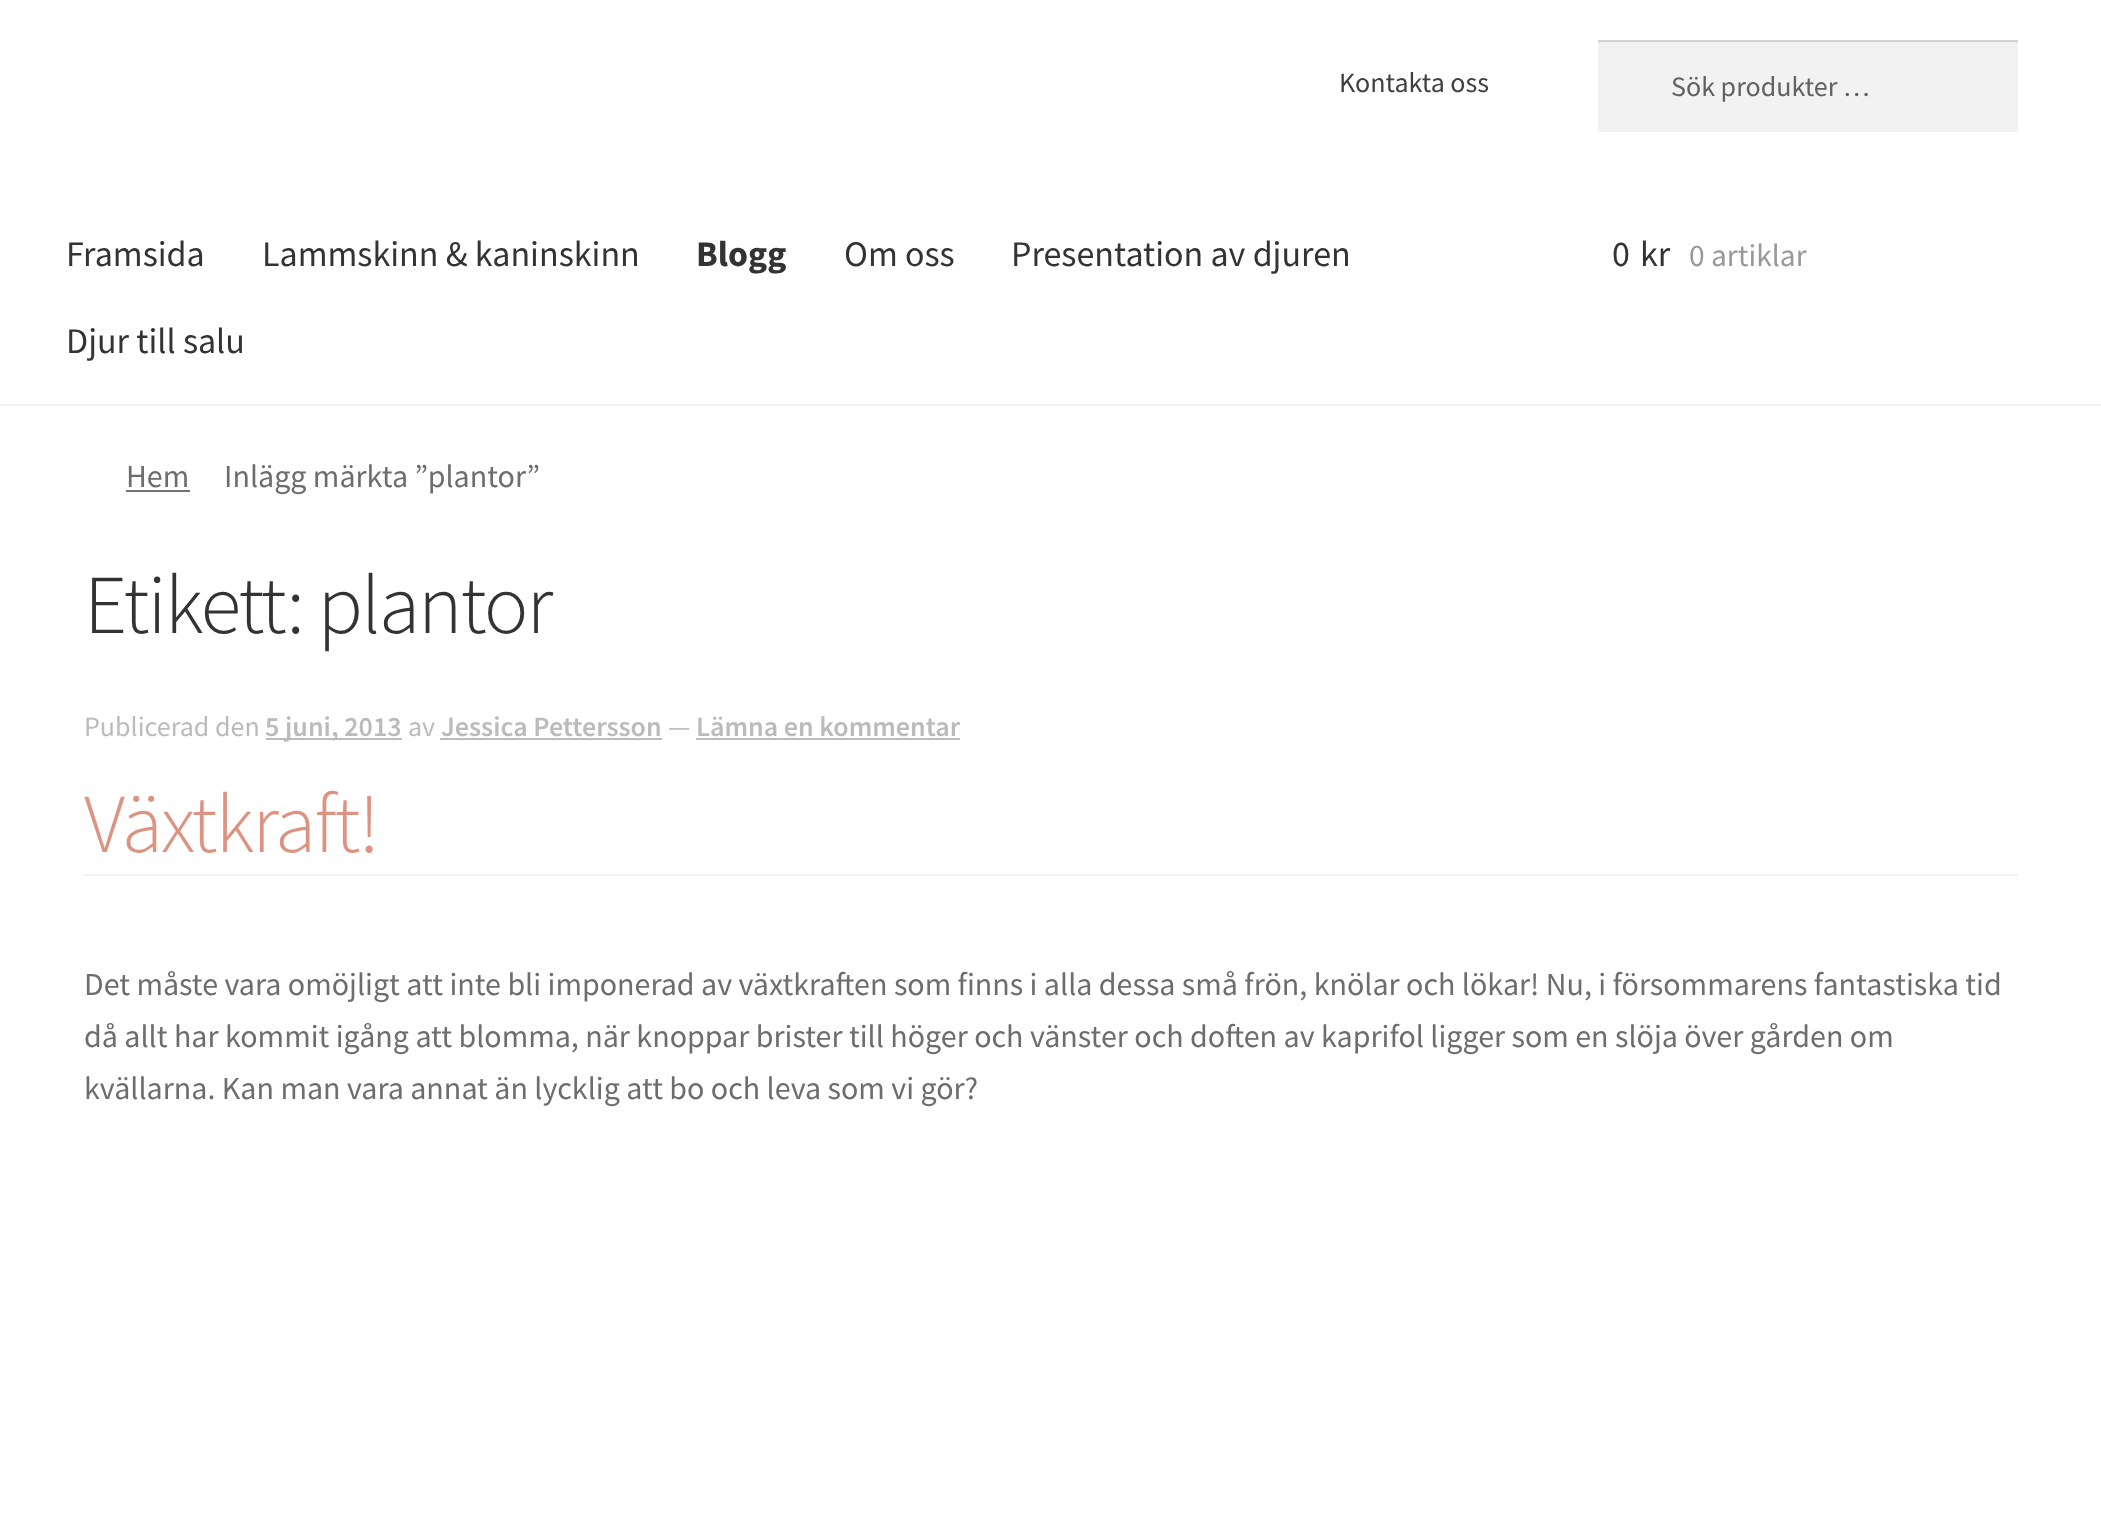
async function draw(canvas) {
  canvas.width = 2101
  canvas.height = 1523
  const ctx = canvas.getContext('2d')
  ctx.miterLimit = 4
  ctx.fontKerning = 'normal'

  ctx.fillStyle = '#fff'
  ctx.fillRect(0, 0, 2101, 1523)
  ctx.fillStyle = '#f0f0f0'
  ctx.fillRect(0, 404, 2101, 2)
  ctx.font = '28px Source Sans Pro'
  ctx.fillStyle = '#404040'
  ctx.fillText('Kontakta oss', 1339, 92)
  ctx.fillStyle = '#f2f2f2'
  ctx.fillRect(1598, 42, 420, 90)
  ctx.fillStyle = '#d4d4d4'
  ctx.fillRect(1598, 40, 420, 2)
  ctx.fillStyle = '#616161'
  ctx.fillText('Sök produkter …', 1671, 96)
  ctx.font = '36px Source Sans Pro'
  ctx.fillStyle = '#333'
  ctx.fillText('Framsida', 66, 266)
  ctx.fillText('Lammskinn & kaninskinn', 262, 266)
  ctx.font = 'bold 36px Source Sans Pro'
  ctx.fillText('Blogg', 696, 266)
  ctx.font = '36px Source Sans Pro'
  ctx.fillText('Om oss', 844, 266)
  ctx.fillText('Presentation av djuren', 1011, 266)
  ctx.fillText('Djur till salu', 66, 353)
  ctx.fillText('0', 1612, 266)
  ctx.fillText('kr', 1640, 266)
  ctx.font = '31.5px Source Sans Pro'
  ctx.fillStyle = '#999'
  ctx.fillText('0 artiklar', 1689, 266)
  ctx.font = '32px Source Sans Pro'
  ctx.fillStyle = '#6d6d6d'
  ctx.fillText('Hem', 126, 487)
  ctx.fillStyle = '#727272'
  ctx.fillRect(126, 490, 64, 2)
  ctx.fillStyle = '#6d6d6d'
  ctx.fillText('Inlägg märkta ”plantor”', 224, 487)
  ctx.letterSpacing = '-2px'
  ctx.font = '300 83.75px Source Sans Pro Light'
  ctx.fillStyle = '#333'
  ctx.fillText('Etikett: plantor', 84, 633)
  ctx.fillStyle = '#f2f2f2'
  ctx.fillRect(84, 874, 1934, 2)
  ctx.letterSpacing = '0px'
  ctx.font = '28px Source Sans Pro'
  ctx.fillStyle = '#bbb'
  ctx.fillText('Publicerad den', 84, 736)
  ctx.fillRect(266, 738, 136, 2)
  ctx.font = '600 28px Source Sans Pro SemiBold'
  ctx.fillText('5 juni, 2013', 265, 736)
  ctx.font = '28px Source Sans Pro'
  ctx.fillText('av', 408, 736)
  ctx.fillRect(440, 738, 222, 2)
  ctx.font = '600 28px Source Sans Pro SemiBold'
  ctx.fillText('Jessica Pettersson', 441, 736)
  ctx.font = '28px Source Sans Pro'
  ctx.fillText('—', 668, 736)
  ctx.font = '600 28px Source Sans Pro SemiBold'
  ctx.fillText('Lämna en kommentar', 696, 736)
  ctx.fillRect(696, 738, 264, 2)
  ctx.letterSpacing = '-2px'
  ctx.font = '300 83.75px Source Sans Pro Light'
  ctx.fillStyle = '#dd9382'
  ctx.fillText('Växtkraft!', 84, 852)
  ctx.letterSpacing = '0px'
  ctx.font = '32px Source Sans Pro'
  ctx.fillStyle = '#6d6d6d'
  ctx.fillText('Det måste vara omöjligt att inte bli imponerad av växtkraften som finns i alla dessa små frön, knölar och lökar! Nu, i försommarens fantastiska tid', 84, 995)
  ctx.fillText('då allt har kommit igång att blomma, när knoppar brister till höger och vänster och doften av kaprifol ligger som en slöja över gården om', 84, 1047)
  ctx.fillText('kvällarna. Kan man vara annat än lycklig att bo och leva som vi gör?', 84, 1099)
}

draw(document.querySelector('canvas'))
